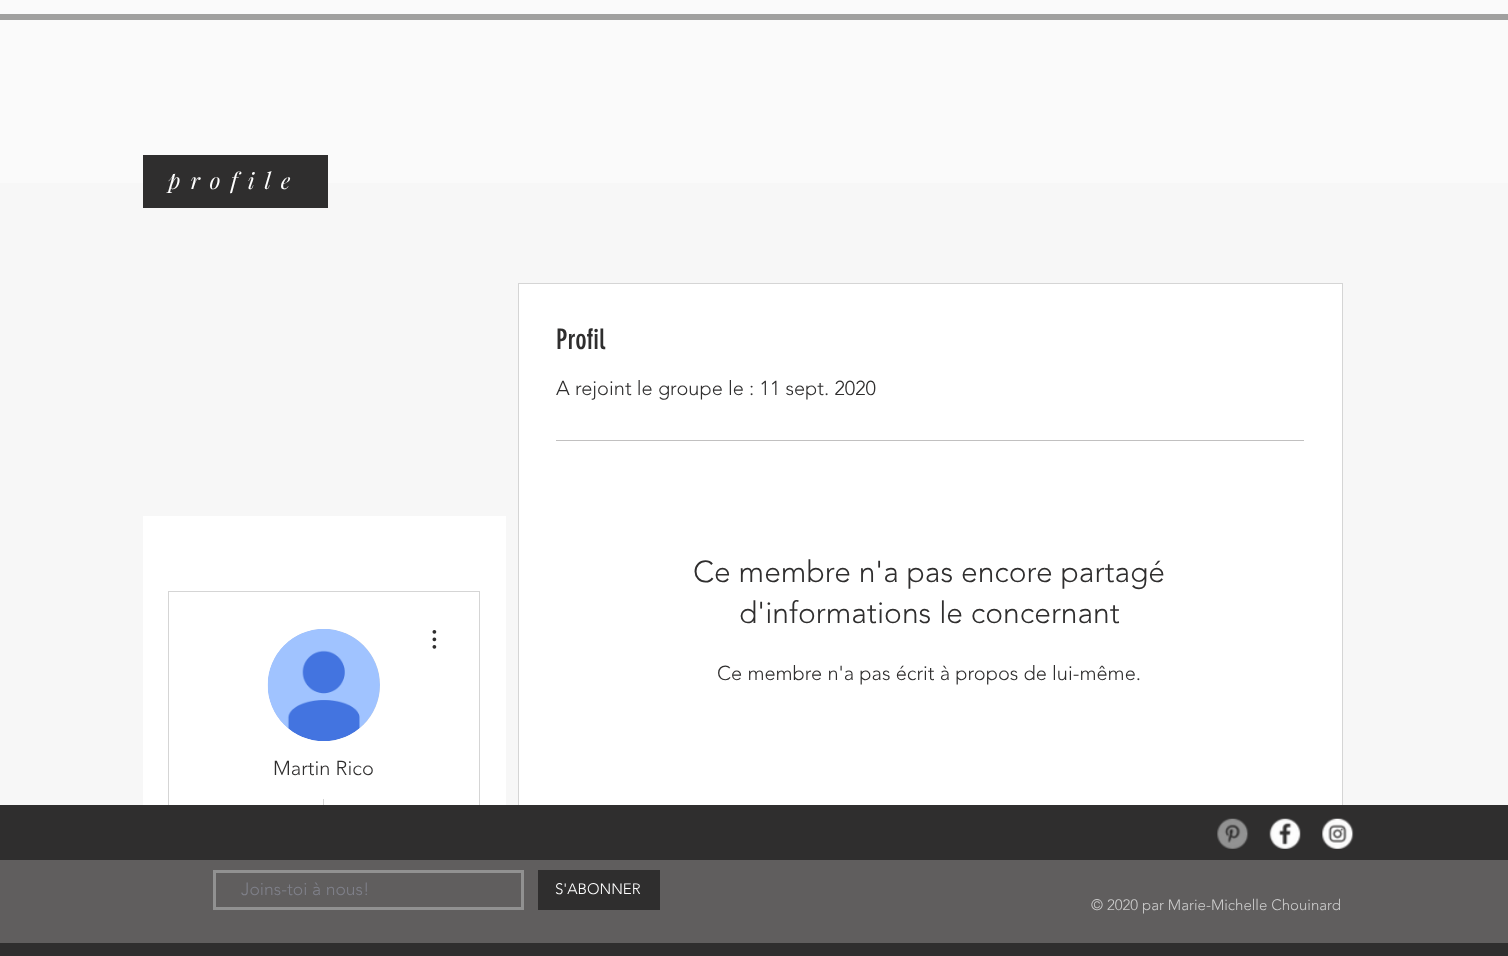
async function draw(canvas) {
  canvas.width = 1508
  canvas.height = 956
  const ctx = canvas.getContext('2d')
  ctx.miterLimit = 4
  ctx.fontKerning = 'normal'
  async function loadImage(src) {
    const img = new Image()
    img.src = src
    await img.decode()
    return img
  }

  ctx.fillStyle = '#f7f7f7'
  ctx.fillRect(0, 0, 1508, 956)
  ctx.fillStyle = '#fafafa'
  ctx.fillRect(0, 0, 1508, 183)
  ctx.fillStyle = '#a0a09f'
  ctx.fillRect(0, 14, 1508, 6)
  ctx.fillStyle = '#2f2e2e'
  ctx.fillRect(143, 155, 185, 53)
  ctx.letterSpacing = '10px'
  ctx.font = 'italic 22.5px Playfair Display'
  ctx.fillStyle = '#fff'
  ctx.fillText('profile', 168, 189)
  ctx.fillRect(519, 284, 823, 521)
  ctx.strokeStyle = '#d5d5d5'
  ctx.strokeRect(518.5, 283.5, 824, 554)
  ctx.letterSpacing = '0px'
  ctx.font = '28px "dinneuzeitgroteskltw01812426"'
  ctx.fillStyle = '#2f2e2e'
  ctx.fillText('Profil', 556, 349)
  ctx.font = '300 20px "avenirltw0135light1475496"'
  ctx.fillText('A rejoint le groupe le : 11 sept. 2020', 556, 395)
  ctx.fillStyle = '#c1c0c0'
  ctx.fillRect(556, 440, 748, 1)
  ctx.font = '300 30px "avenirltw0135light1475496"'
  ctx.fillStyle = '#2f2e2e'
  ctx.fillText('Ce membre n\'a pas encore partagé', 693, 582)
  ctx.fillText('d\'informations le concernant', 739, 623)
  ctx.font = '300 20px "avenirltw0135light1475496"'
  ctx.fillText('Ce membre n\'a pas écrit à propos de lui-même.', 717, 680)
  ctx.fillStyle = '#fff'
  ctx.fillRect(143, 516, 363, 289)
  ctx.strokeRect(168.5, 591.5, 311, 352)
  ctx.fillStyle = '#d8d8d8'
  ctx.beginPath()
  ctx.arc(324, 685, 56, 0, 2 * Math.PI)
  ctx.fill()
  ctx.drawImage(await loadImage('image0.png'), 267, 629, 113, 112)
  ctx.drawImage(await loadImage('image1.png'), 432, 630, 5, 19)
  ctx.fillStyle = '#2f2e2e'
  ctx.fillText('Martin Rico', 273, 775)
  ctx.fillStyle = '#d5d5d5'
  ctx.fillRect(323, 799, 1, 6)
  ctx.fillStyle = '#2f2e2e'
  ctx.fillRect(0, 805, 1508, 151)
  ctx.drawImage(await loadImage('image2.png'), 1217, 818, 32, 31)
  ctx.drawImage(await loadImage('image3.png'), 1269, 818, 32, 31)
  ctx.drawImage(await loadImage('image4.png'), 1322, 818, 32, 31)
  ctx.fillStyle = '#605e5e'
  ctx.fillRect(0, 860, 1508, 83)
  ctx.strokeStyle = '#919191'
  ctx.lineWidth = 3
  ctx.strokeRect(214.5, 871.5, 308, 37)
  ctx.font = '300 17.5px "avenirltw0135light1475496"'
  ctx.fillStyle = '#7f808a'
  ctx.fillText('Joins-toi à nous!', 241, 895)
  ctx.fillStyle = '#2f2e2e'
  ctx.fillRect(538, 870, 122, 40)
  ctx.font = '300 15px "avenirltw0135light1475496"'
  ctx.fillStyle = '#fff'
  ctx.fillText('S\'ABONNER', 555, 894)
  ctx.fillStyle = '#ccc'
  ctx.fillText('© 2020 par Marie-Michelle Chouinard', 1091, 910)
}

draw(document.querySelector('canvas'))
